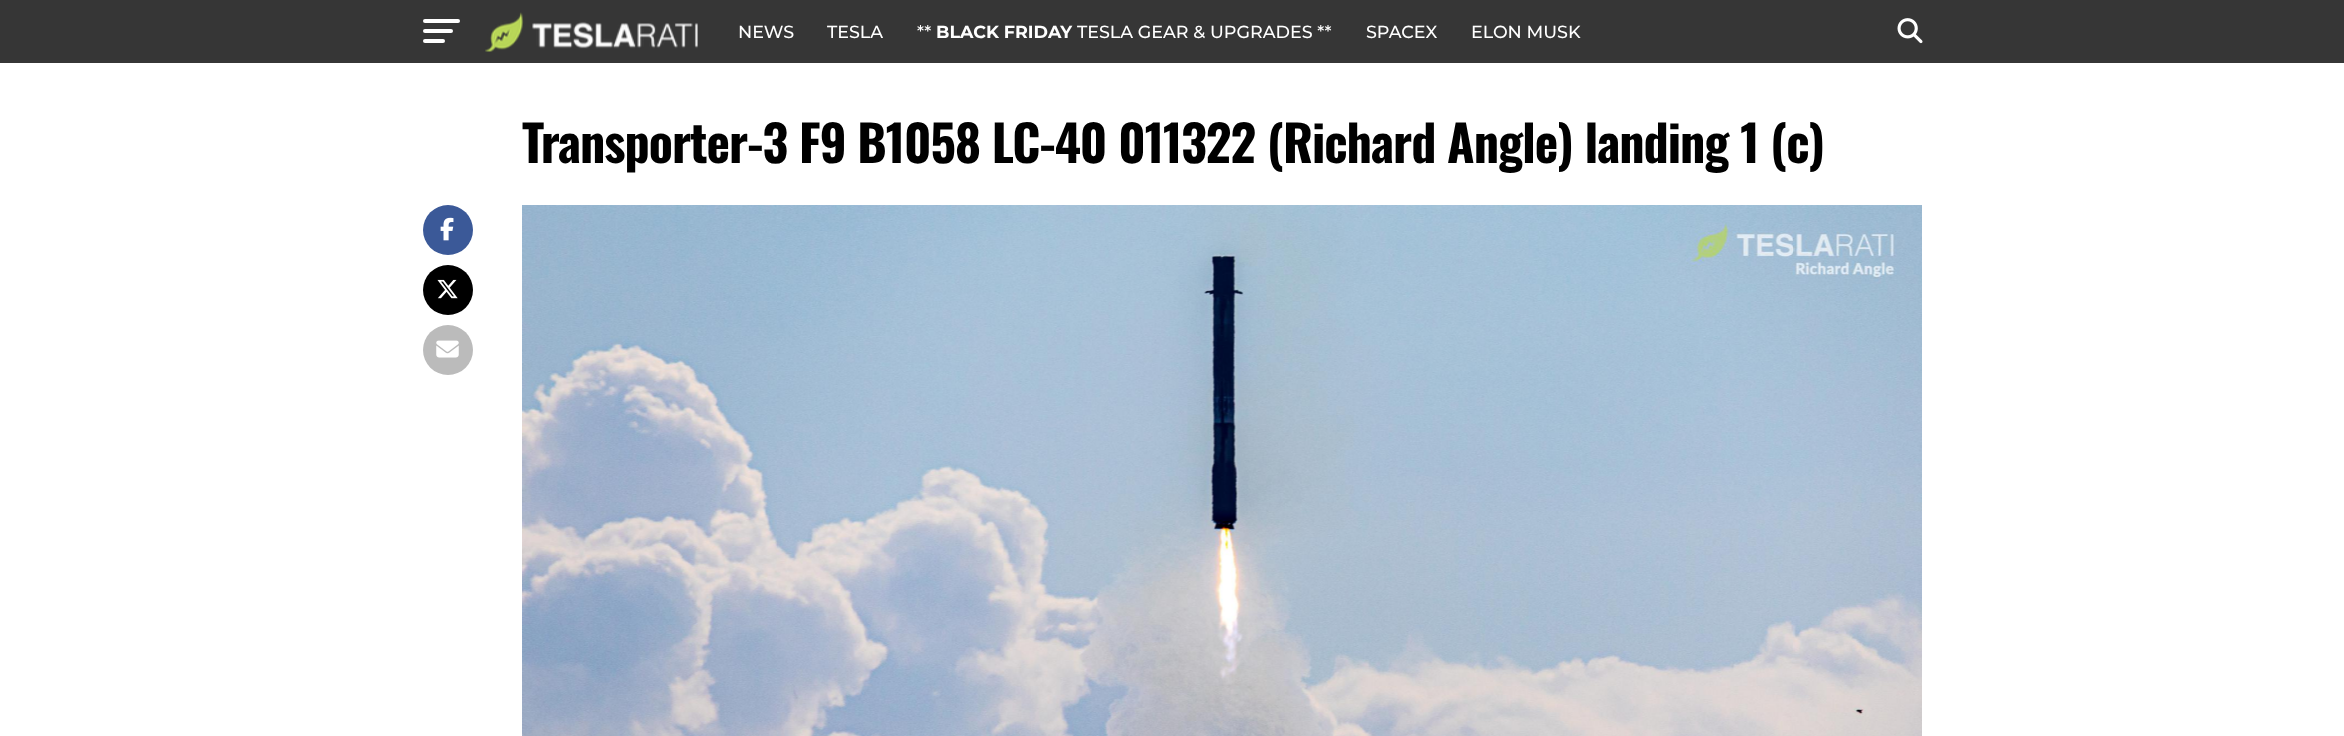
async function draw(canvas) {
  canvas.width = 2344
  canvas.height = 736
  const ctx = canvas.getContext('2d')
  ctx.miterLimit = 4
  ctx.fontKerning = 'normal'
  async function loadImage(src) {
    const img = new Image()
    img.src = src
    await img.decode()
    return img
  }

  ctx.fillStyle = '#fff'
  ctx.fillRect(0, 0, 2344, 736)
  ctx.fillStyle = '#363636'
  ctx.fillRect(0, 0, 2344, 63)
  ctx.fillStyle = '#fff'
  ctx.beginPath()
  ctx.roundRect(423, 19, 37, 4, 2)
  ctx.fill()
  ctx.beginPath()
  ctx.roundRect(423, 29, 30, 4, 2)
  ctx.fill()
  ctx.beginPath()
  ctx.roundRect(423, 39, 22, 4, 2)
  ctx.fill()
  ctx.drawImage(await loadImage('image0.png'), 485, 12, 213, 40)
  ctx.font = '500 17.5px Montserrat'
  ctx.fillText('NEWS', 738, 38)
  ctx.fillText('TESLA', 827, 38)
  ctx.fillText('**', 917, 38)
  ctx.font = 'bold 17.5px Montserrat'
  ctx.fillText('BLACK FRIDAY', 936, 38)
  ctx.font = '500 17.5px Montserrat'
  ctx.fillText('TESLA GEAR & UPGRADES **', 1077, 38)
  ctx.fillText('SPACEX', 1366, 38)
  ctx.fillText('ELON MUSK', 1471, 38)
  ctx.drawImage(await loadImage('image1.png'), 1897, 18, 26, 26)
  ctx.letterSpacing = '-1px'
  ctx.font = 'bold 50px Oswald'
  ctx.fillStyle = '#000'
  ctx.fillText('Transporter-3 F9 B1058 LC-40 011322 (Richard Angle) landing 1 (c)', 522, 163)
  ctx.fillStyle = '#3b5998'
  ctx.beginPath()
  ctx.arc(448, 230, 25, 0, 2 * Math.PI)
  ctx.fill()
  ctx.drawImage(await loadImage('image2.png'), 440, 217, 14, 24)
  ctx.fillStyle = '#000'
  ctx.beginPath()
  ctx.arc(448, 290, 25, 0, 2 * Math.PI)
  ctx.fill()
  ctx.drawImage(await loadImage('image3.png'), 437, 279, 21, 20)
  ctx.fillStyle = '#bbb'
  ctx.beginPath()
  ctx.arc(448, 350, 25, 0, 2 * Math.PI)
  ctx.fill()
  ctx.drawImage(await loadImage('image4.png'), 436, 340, 23, 18)
  ctx.drawImage(await loadImage('image5.png'), 522, 205, 1400, 531)
}

draw(document.querySelector('canvas'))
